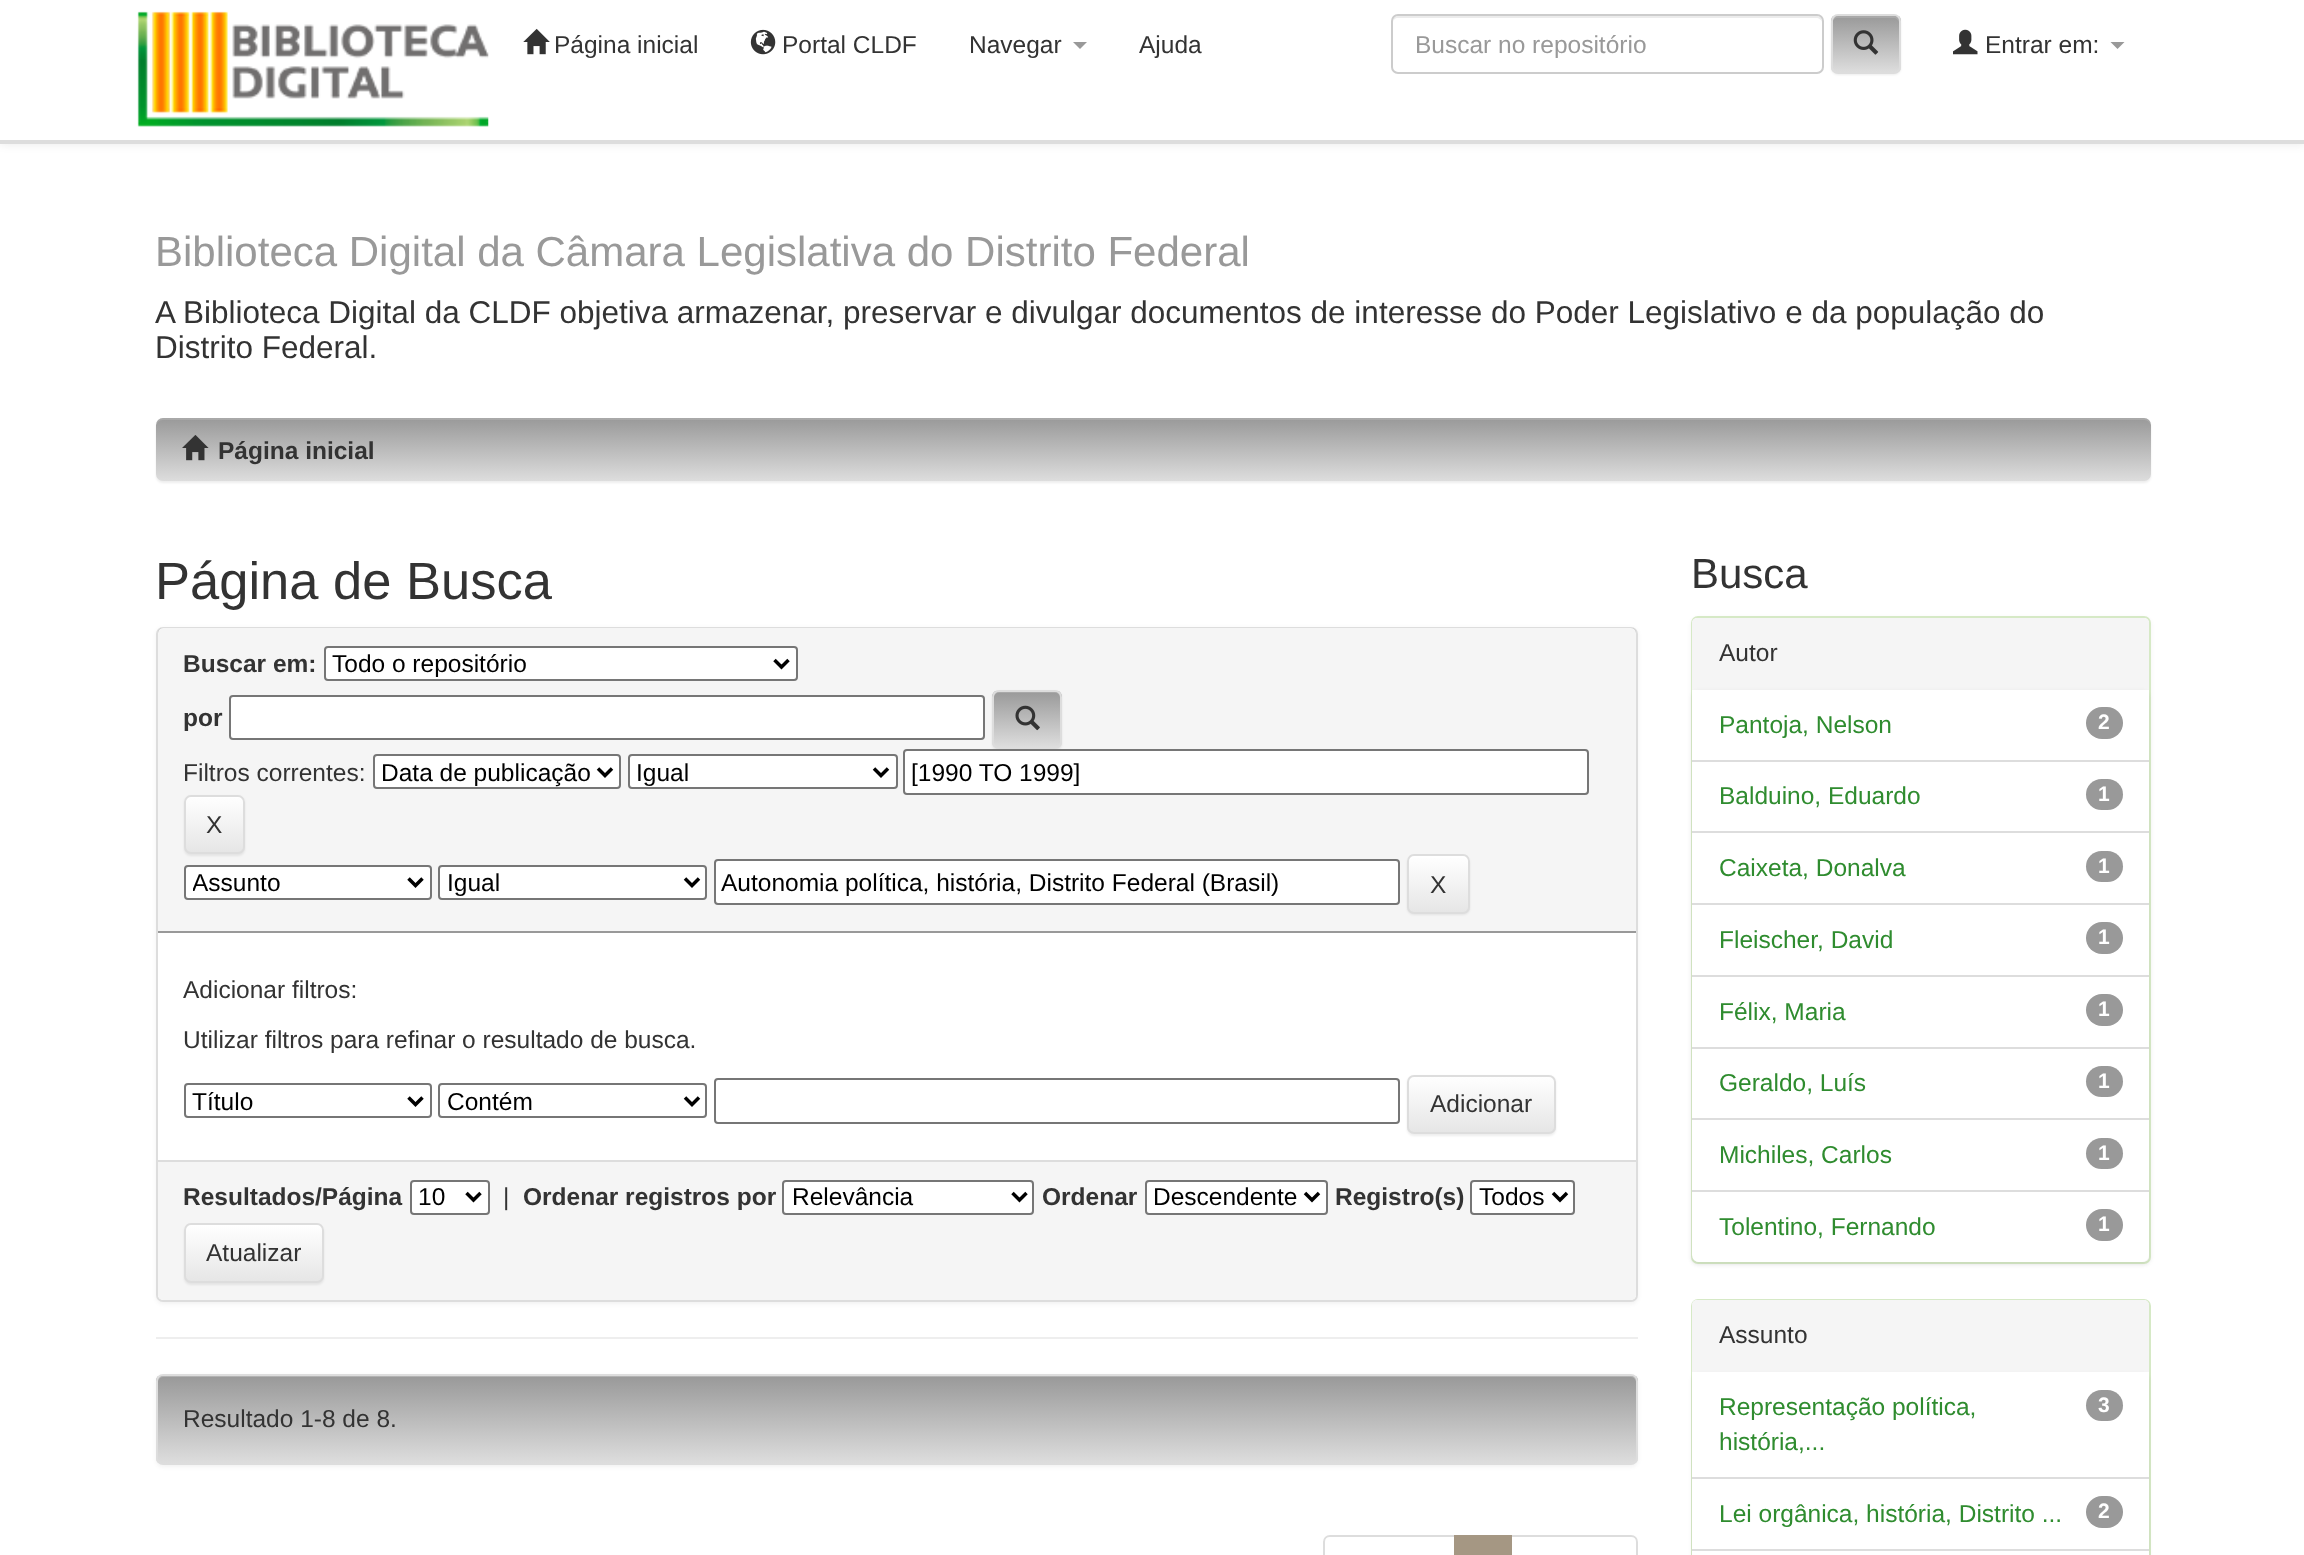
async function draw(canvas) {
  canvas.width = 2304
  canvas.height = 1555
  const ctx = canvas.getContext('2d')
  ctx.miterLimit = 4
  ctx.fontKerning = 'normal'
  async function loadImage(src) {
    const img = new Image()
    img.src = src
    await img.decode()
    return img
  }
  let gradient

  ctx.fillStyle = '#fff'
  ctx.fillRect(0, 0, 2304, 1555)
  ctx.fillStyle = '#00000012'
  ctx.filter = 'blur(4.5px)'
  ctx.beginPath()
  ctx.rect(0, 2, 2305, 143)
  ctx.fill()
  ctx.filter = 'none'
  ctx.fillStyle = '#fff'
  ctx.fillRect(0, 0, 2304, 140)
  ctx.fillStyle = '#ddd'
  ctx.fillRect(0, 140, 2304, 4)
  ctx.drawImage(await loadImage('image0.png'), 137, 11, 352, 116)
  ctx.drawImage(await loadImage('image1.png'), 523, 28, 27, 27)
  ctx.font = '24.5px Liberation Sans'
  ctx.fillStyle = '#333'
  ctx.fillText('Página inicial', 554, 53)
  ctx.drawImage(await loadImage('image2.png'), 750, 29, 26, 26)
  ctx.fillText('Portal CLDF', 782, 53)
  ctx.fillText('Navegar', 969, 53)
  ctx.fillStyle = '#999'
  ctx.beginPath()
  ctx.moveTo(1073, 42)
  ctx.lineTo(1087, 42)
  ctx.lineTo(1080, 49)
  ctx.closePath()
  ctx.fill()
  ctx.fillStyle = '#333'
  ctx.fillText('Ajuda', 1139, 53)
  ctx.fillStyle = '#ececec'
  ctx.beginPath()
  ctx.moveTo(1398, 18)
  ctx.lineTo(1816, 18)
  ctx.bezierCurveTo(1819, 18, 1822, 20, 1822, 23)
  ctx.bezierCurveTo(1822, 20, 1821, 16, 1817, 16)
  ctx.lineTo(1398, 16)
  ctx.bezierCurveTo(1394, 16, 1393, 20, 1393, 23)
  ctx.bezierCurveTo(1393, 20, 1395, 18, 1398, 18)
  ctx.closePath()
  ctx.fill()
  ctx.beginPath()
  ctx.roundRect(1392, 15, 431, 58, 6)
  ctx.strokeStyle = '#ccc'
  ctx.lineWidth = 2
  ctx.stroke()
  ctx.fillStyle = '#999'
  ctx.fillText('Buscar no repositório', 1415, 53)
  ctx.fillStyle = '#00000012'
  ctx.filter = 'blur(1px)'
  ctx.beginPath()
  ctx.roundRect(1831, 16, 70, 59, 7)
  ctx.fill()
  ctx.filter = 'none'
  ctx.save()
  ctx.beginPath()
  ctx.roundRect(1831, 14, 70, 60, 7)
  ctx.clip()
  gradient = ctx.createLinearGradient(1866, 16, 1866, 72)
  gradient.addColorStop(0, '#999')
  gradient.addColorStop(1, '#ddd')
  ctx.fillStyle = gradient
  ctx.fillRect(1831, 16, 70, 56)
  ctx.restore()
  ctx.fillStyle = '#ffffff26'
  ctx.beginPath()
  ctx.moveTo(1838, 18)
  ctx.lineTo(1894, 18)
  ctx.bezierCurveTo(1896, 18, 1899, 20, 1899, 23)
  ctx.bezierCurveTo(1899, 14, 1892, 16, 1884, 16)
  ctx.lineTo(1846, 16)
  ctx.bezierCurveTo(1839, 16, 1832, 14, 1832, 23)
  ctx.bezierCurveTo(1832, 20, 1835, 18, 1838, 18)
  ctx.closePath()
  ctx.fill()
  ctx.beginPath()
  ctx.roundRect(1832, 15, 68, 58, 6)
  ctx.strokeStyle = '#ddd'
  ctx.stroke()
  ctx.drawImage(await loadImage('image3.png'), 1853, 30, 26, 25)
  ctx.drawImage(await loadImage('image4.png'), 1953, 29, 25, 26)
  ctx.fillStyle = '#333'
  ctx.fillText('Entrar em:', 1985, 53)
  ctx.fillStyle = '#999'
  ctx.beginPath()
  ctx.moveTo(2110.5, 42)
  ctx.lineTo(2124.5, 42)
  ctx.lineTo(2117.5, 49)
  ctx.closePath()
  ctx.fill()
  ctx.font = '42px Liberation Sans'
  ctx.fillText('Biblioteca Digital da Câmara Legislativa do Distrito Federal', 155, 266)
  ctx.font = '31.5px Liberation Sans'
  ctx.fillStyle = '#333'
  ctx.fillText('A Biblioteca Digital da CLDF objetiva armazenar, preservar e divulgar documentos de interesse do Poder Legislativo e da população do', 155, 323)
  ctx.fillText('Distrito Federal.', 155, 358)
  ctx.fillStyle = '#00000012'
  ctx.filter = 'blur(1px)'
  ctx.beginPath()
  ctx.roundRect(156, 420, 1995, 63, 7)
  ctx.fill()
  ctx.filter = 'none'
  gradient = ctx.createLinearGradient(1153, 418, 1153, 481)
  gradient.addColorStop(0, '#999')
  gradient.addColorStop(1, '#ddd')
  ctx.fillStyle = gradient
  ctx.beginPath()
  ctx.roundRect(156, 418, 1995, 63, 7)
  ctx.fill()
  ctx.fillStyle = '#ffffff26'
  ctx.beginPath()
  ctx.moveTo(163, 420)
  ctx.lineTo(2144, 420)
  ctx.bezierCurveTo(2148, 420, 2151, 423, 2151, 427)
  ctx.bezierCurveTo(2151, 423, 2149, 418, 2144, 418)
  ctx.lineTo(163, 418)
  ctx.bezierCurveTo(158, 418, 156, 423, 156, 427)
  ctx.bezierCurveTo(156, 423, 159, 420, 163, 420)
  ctx.closePath()
  ctx.fill()
  ctx.drawImage(await loadImage('image5.png'), 182, 435, 27, 26)
  ctx.font = 'bold 24.5px Liberation Sans'
  ctx.fillStyle = '#333'
  ctx.fillText('Página inicial', 218, 459)
  ctx.font = '52.5px Liberation Sans'
  ctx.fillText('Página de Busca', 155, 599)
  ctx.fillStyle = '#0000000d'
  ctx.filter = 'blur(2px)'
  ctx.beginPath()
  ctx.roundRect(156, 628, 1482, 676, 7)
  ctx.fill()
  ctx.filter = 'none'
  ctx.fillStyle = '#fff'
  ctx.beginPath()
  ctx.roundRect(157, 628, 1480, 673, 6)
  ctx.fill()
  ctx.stroke()
  ctx.fillStyle = '#999'
  ctx.beginPath()
  ctx.roundRect(158, 628, 1478, 305, [5, 5, 0, 0])
  ctx.fill()
  ctx.fillStyle = '#f5f5f5'
  ctx.beginPath()
  ctx.roundRect(158, 628, 1478, 303, [5, 5, 0, 0])
  ctx.fill()
  ctx.font = 'bold 24.5px Liberation Sans'
  ctx.fillStyle = '#333'
  ctx.fillText('Buscar em:', 183, 672)
  ctx.fillStyle = '#fff'
  ctx.beginPath()
  ctx.roundRect(325, 647, 472, 33, 3)
  ctx.fill()
  ctx.strokeStyle = '#767676'
  ctx.stroke()
  ctx.beginPath()
  ctx.moveTo(774.5, 660)
  ctx.lineTo(781.5, 667)
  ctx.lineTo(788.5, 660)
  ctx.strokeStyle = '#000'
  ctx.lineWidth = 3.5
  ctx.stroke()
  ctx.font = '24.5px Liberation Sans'
  ctx.fillStyle = '#000'
  ctx.fillText('Todo o repositório', 332, 672)
  ctx.font = 'bold 24.5px Liberation Sans'
  ctx.fillStyle = '#333'
  ctx.fillText('por', 183, 726)
  ctx.fillStyle = '#fff'
  ctx.beginPath()
  ctx.roundRect(230, 696, 754, 43, 3)
  ctx.fill()
  ctx.strokeStyle = '#767676'
  ctx.lineWidth = 2
  ctx.stroke()
  ctx.fillStyle = '#00000012'
  ctx.filter = 'blur(1px)'
  ctx.beginPath()
  ctx.roundRect(992, 691, 70, 60, 7)
  ctx.fill()
  ctx.filter = 'none'
  ctx.save()
  ctx.beginPath()
  ctx.roundRect(992, 690, 70, 59, 7)
  ctx.clip()
  gradient = ctx.createLinearGradient(1027, 691, 1027, 747)
  gradient.addColorStop(0, '#999')
  gradient.addColorStop(1, '#ddd')
  ctx.fillStyle = gradient
  ctx.fillRect(992, 691, 70, 56)
  ctx.restore()
  ctx.fillStyle = '#ffffff26'
  ctx.beginPath()
  ctx.moveTo(999, 693)
  ctx.lineTo(1056, 693)
  ctx.bezierCurveTo(1062, 694, 1060, 702, 1060, 706)
  ctx.lineTo(1060, 745)
  ctx.bezierCurveTo(1061, 744, 1061, 743, 1061, 742)
  ctx.lineTo(1061, 696)
  ctx.bezierCurveTo(1061, 693, 1059, 691, 1056, 691)
  ctx.lineTo(999, 691)
  ctx.bezierCurveTo(996, 691, 994, 693, 994, 696)
  ctx.lineTo(994, 698)
  ctx.bezierCurveTo(994, 695, 996, 693, 999, 693)
  ctx.closePath()
  ctx.fill()
  ctx.beginPath()
  ctx.roundRect(993, 691, 68, 57, 6)
  ctx.strokeStyle = '#ddd'
  ctx.stroke()
  ctx.drawImage(await loadImage('image6.png'), 1015, 705, 25, 26)
  ctx.font = '24.5px Liberation Sans'
  ctx.fillStyle = '#333'
  ctx.fillText('Filtros correntes:', 183, 781)
  ctx.fillStyle = '#fff'
  ctx.beginPath()
  ctx.roundRect(374, 755, 246, 33, 3)
  ctx.fill()
  ctx.strokeStyle = '#767676'
  ctx.stroke()
  ctx.beginPath()
  ctx.moveTo(598, 768.5)
  ctx.lineTo(605, 775.5)
  ctx.lineTo(612, 768.5)
  ctx.strokeStyle = '#000'
  ctx.lineWidth = 3.5
  ctx.stroke()
  ctx.fillStyle = '#000'
  ctx.fillText('Data de publicação', 381, 781)
  ctx.fillStyle = '#fff'
  ctx.beginPath()
  ctx.roundRect(629, 755, 268, 33, 3)
  ctx.fill()
  ctx.strokeStyle = '#767676'
  ctx.lineWidth = 2
  ctx.stroke()
  ctx.beginPath()
  ctx.moveTo(874, 768.5)
  ctx.lineTo(881, 775.5)
  ctx.lineTo(888, 768.5)
  ctx.strokeStyle = '#000'
  ctx.lineWidth = 3.5
  ctx.stroke()
  ctx.fillStyle = '#000'
  ctx.fillText('Igual', 636, 781)
  ctx.fillStyle = '#fff'
  ctx.beginPath()
  ctx.roundRect(904, 750, 684, 44, 3)
  ctx.fill()
  ctx.strokeStyle = '#767676'
  ctx.lineWidth = 2
  ctx.stroke()
  ctx.fillStyle = '#000'
  ctx.fillText('[1990 TO 1999]', 911, 781)
  ctx.fillStyle = '#00000012'
  ctx.filter = 'blur(1px)'
  ctx.beginPath()
  ctx.roundRect(184, 796, 61, 60, 7)
  ctx.fill()
  ctx.filter = 'none'
  ctx.save()
  ctx.beginPath()
  ctx.roundRect(184, 795, 61, 59, 7)
  ctx.clip()
  gradient = ctx.createLinearGradient(214, 796, 214, 852)
  gradient.addColorStop(0, '#fff')
  gradient.addColorStop(1, '#e6e6e6')
  ctx.fillStyle = gradient
  ctx.fillRect(184, 796, 61, 56)
  ctx.restore()
  ctx.fillStyle = '#fff'
  ctx.beginPath()
  ctx.moveTo(191, 798)
  ctx.lineTo(238, 798)
  ctx.bezierCurveTo(241, 798, 243, 800, 243, 803)
  ctx.bezierCurveTo(243, 794, 238, 796, 230, 796)
  ctx.lineTo(199, 796)
  ctx.bezierCurveTo(191, 796, 186, 794, 186, 803)
  ctx.bezierCurveTo(186, 800, 188, 798, 191, 798)
  ctx.closePath()
  ctx.fill()
  ctx.beginPath()
  ctx.roundRect(185, 796, 59, 57, 6)
  ctx.strokeStyle = '#ddd'
  ctx.stroke()
  ctx.fillStyle = '#333'
  ctx.fillText('X', 206, 833)
  ctx.fillStyle = '#fff'
  ctx.beginPath()
  ctx.roundRect(185, 866, 246, 33, 3)
  ctx.fill()
  ctx.strokeStyle = '#767676'
  ctx.stroke()
  ctx.beginPath()
  ctx.moveTo(408.5, 878.5)
  ctx.lineTo(415.5, 885.5)
  ctx.lineTo(422.5, 878.5)
  ctx.strokeStyle = '#000'
  ctx.lineWidth = 3.5
  ctx.stroke()
  ctx.save()
  ctx.beginPath()
  ctx.rect(193, 866, 210, 32)
  ctx.clip()
  ctx.fillStyle = '#000'
  ctx.fillText('Assunto', 192, 891)
  ctx.restore()
  ctx.beginPath()
  ctx.roundRect(439, 866, 267, 33, 3)
  ctx.fill()
  ctx.strokeStyle = '#767676'
  ctx.lineWidth = 2
  ctx.stroke()
  ctx.beginPath()
  ctx.moveTo(685, 878.5)
  ctx.lineTo(692, 885.5)
  ctx.lineTo(699, 878.5)
  ctx.strokeStyle = '#000'
  ctx.lineWidth = 3.5
  ctx.stroke()
  ctx.fillStyle = '#000'
  ctx.fillText('Igual', 447, 891)
  ctx.fillStyle = '#fff'
  ctx.beginPath()
  ctx.roundRect(715, 860, 684, 44, 3)
  ctx.fill()
  ctx.strokeStyle = '#767676'
  ctx.lineWidth = 2
  ctx.stroke()
  ctx.fillStyle = '#000'
  ctx.fillText('Autonomia política, história, Distrito Federal (Brasil)', 721, 891)
  ctx.fillStyle = '#00000012'
  ctx.filter = 'blur(1px)'
  ctx.beginPath()
  ctx.roundRect(1407, 856, 63, 59, 7)
  ctx.fill()
  ctx.filter = 'none'
  ctx.save()
  ctx.beginPath()
  ctx.roundRect(1407, 854, 63, 60, 7)
  ctx.clip()
  gradient = ctx.createLinearGradient(1439, 856, 1439, 912)
  gradient.addColorStop(0, '#fff')
  gradient.addColorStop(1, '#e6e6e6')
  ctx.fillStyle = gradient
  ctx.fillRect(1407, 856, 63, 56)
  ctx.restore()
  ctx.fillStyle = '#fff'
  ctx.beginPath()
  ctx.moveTo(1414, 858)
  ctx.lineTo(1463, 858)
  ctx.bezierCurveTo(1466, 858, 1468, 860, 1468, 863)
  ctx.bezierCurveTo(1468, 854, 1462, 856, 1455, 856)
  ctx.lineTo(1422, 856)
  ctx.bezierCurveTo(1415, 856, 1409, 854, 1409, 863)
  ctx.bezierCurveTo(1409, 860, 1411, 858, 1414, 858)
  ctx.closePath()
  ctx.fill()
  ctx.beginPath()
  ctx.roundRect(1408, 855, 61, 58, 6)
  ctx.strokeStyle = '#ddd'
  ctx.stroke()
  ctx.fillStyle = '#333'
  ctx.fillText('X', 1430, 893)
  ctx.fillText('Adicionar filtros:', 183, 998)
  ctx.fillText('Utilizar filtros para refinar o resultado de busca.', 183, 1048)
  ctx.beginPath()
  ctx.roundRect(185, 1084, 246, 33, 3)
  ctx.strokeStyle = '#767676'
  ctx.stroke()
  ctx.beginPath()
  ctx.moveTo(408.5, 1097.5)
  ctx.lineTo(415.5, 1104.5)
  ctx.lineTo(422.5, 1097.5)
  ctx.strokeStyle = '#000'
  ctx.lineWidth = 3.5
  ctx.stroke()
  ctx.fillStyle = '#000'
  ctx.fillText('Título', 192, 1110)
  ctx.beginPath()
  ctx.roundRect(439, 1084, 267, 33, 3)
  ctx.strokeStyle = '#767676'
  ctx.lineWidth = 2
  ctx.stroke()
  ctx.beginPath()
  ctx.moveTo(685, 1097.5)
  ctx.lineTo(692, 1104.5)
  ctx.lineTo(699, 1097.5)
  ctx.strokeStyle = '#000'
  ctx.lineWidth = 3.5
  ctx.stroke()
  ctx.fillText('Contém', 447, 1110)
  ctx.beginPath()
  ctx.roundRect(715, 1079, 684, 44, 3)
  ctx.strokeStyle = '#767676'
  ctx.lineWidth = 2
  ctx.stroke()
  ctx.fillStyle = '#00000012'
  ctx.filter = 'blur(1px)'
  ctx.beginPath()
  ctx.roundRect(1407, 1076, 149, 60, 7)
  ctx.fill()
  ctx.filter = 'none'
  ctx.save()
  ctx.beginPath()
  ctx.roundRect(1407, 1075, 149, 59, 7)
  ctx.clip()
  gradient = ctx.createLinearGradient(1481, 1076, 1481, 1132)
  gradient.addColorStop(0, '#fff')
  gradient.addColorStop(1, '#e6e6e6')
  ctx.fillStyle = gradient
  ctx.fillRect(1407, 1076, 149, 56)
  ctx.restore()
  ctx.beginPath()
  ctx.roundRect(1408, 1076, 147, 57, 6)
  ctx.strokeStyle = '#ddd'
  ctx.stroke()
  ctx.fillStyle = '#333'
  ctx.fillText('Adicionar', 1430, 1112)
  ctx.fillStyle = '#f5f5f5'
  ctx.beginPath()
  ctx.roundRect(158, 1160, 1478, 140, [0, 0, 5, 5])
  ctx.fill()
  ctx.fillStyle = '#ddd'
  ctx.fillRect(158, 1160, 1478, 2)
  ctx.font = 'bold 24.5px Liberation Sans'
  ctx.fillStyle = '#333'
  ctx.fillText('Resultados/Página', 183, 1205)
  ctx.fillStyle = '#fff'
  ctx.beginPath()
  ctx.roundRect(411, 1181, 78, 33, 3)
  ctx.fill()
  ctx.strokeStyle = '#767676'
  ctx.stroke()
  ctx.beginPath()
  ctx.moveTo(466.5, 1193)
  ctx.lineTo(473.5, 1200)
  ctx.lineTo(480.5, 1193)
  ctx.strokeStyle = '#000'
  ctx.lineWidth = 3.5
  ctx.stroke()
  ctx.font = '24.5px Liberation Sans'
  ctx.fillStyle = '#000'
  ctx.fillText('10', 418, 1205)
  ctx.fillStyle = '#333'
  ctx.fillText('|', 503, 1205)
  ctx.font = 'bold 24.5px Liberation Sans'
  ctx.fillText('Ordenar registros por', 523, 1205)
  ctx.fillStyle = '#fff'
  ctx.beginPath()
  ctx.roundRect(783, 1181, 250, 33, 3)
  ctx.fill()
  ctx.strokeStyle = '#767676'
  ctx.lineWidth = 2
  ctx.stroke()
  ctx.beginPath()
  ctx.moveTo(1012.5, 1193)
  ctx.lineTo(1019.5, 1200)
  ctx.lineTo(1026.5, 1193)
  ctx.strokeStyle = '#000'
  ctx.lineWidth = 3.5
  ctx.stroke()
  ctx.font = '24.5px Liberation Sans'
  ctx.fillStyle = '#000'
  ctx.fillText('Relevância', 792, 1205)
  ctx.font = 'bold 24.5px Liberation Sans'
  ctx.fillStyle = '#333'
  ctx.fillText('Ordenar', 1042, 1205)
  ctx.fillStyle = '#fff'
  ctx.beginPath()
  ctx.roundRect(1146, 1181, 181, 33, 3)
  ctx.fill()
  ctx.strokeStyle = '#767676'
  ctx.lineWidth = 2
  ctx.stroke()
  ctx.beginPath()
  ctx.moveTo(1305, 1193)
  ctx.lineTo(1312, 1200)
  ctx.lineTo(1319, 1193)
  ctx.strokeStyle = '#000'
  ctx.lineWidth = 3.5
  ctx.stroke()
  ctx.font = '24.5px Liberation Sans'
  ctx.fillStyle = '#000'
  ctx.fillText('Descendente', 1153, 1205)
  ctx.font = 'bold 24.5px Liberation Sans'
  ctx.fillStyle = '#333'
  ctx.fillText('Registro(s)', 1335, 1205)
  ctx.fillStyle = '#fff'
  ctx.beginPath()
  ctx.roundRect(1471, 1181, 103, 33, 3)
  ctx.fill()
  ctx.strokeStyle = '#767676'
  ctx.lineWidth = 2
  ctx.stroke()
  ctx.beginPath()
  ctx.moveTo(1553, 1193)
  ctx.lineTo(1560, 1200)
  ctx.lineTo(1567, 1193)
  ctx.strokeStyle = '#000'
  ctx.lineWidth = 3.5
  ctx.stroke()
  ctx.font = '24.5px Liberation Sans'
  ctx.fillStyle = '#000'
  ctx.fillText('Todos', 1479, 1205)
  ctx.fillStyle = '#00000012'
  ctx.filter = 'blur(1px)'
  ctx.beginPath()
  ctx.roundRect(184, 1225, 140, 60, 7)
  ctx.fill()
  ctx.filter = 'none'
  ctx.save()
  ctx.beginPath()
  ctx.roundRect(184, 1223, 140, 60, 7)
  ctx.clip()
  gradient = ctx.createLinearGradient(254, 1225, 254, 1281)
  gradient.addColorStop(0, '#fff')
  gradient.addColorStop(1, '#e6e6e6')
  ctx.fillStyle = gradient
  ctx.fillRect(184, 1225, 140, 56)
  ctx.restore()
  ctx.beginPath()
  ctx.roundRect(185, 1224, 138, 58, 6)
  ctx.strokeStyle = '#ddd'
  ctx.lineWidth = 2
  ctx.stroke()
  ctx.fillStyle = '#333'
  ctx.fillText('Atualizar', 206, 1261)
  ctx.fillStyle = '#eee'
  ctx.fillRect(156, 1337, 1482, 2)
  ctx.fillStyle = '#0000000d'
  ctx.filter = 'blur(2px)'
  ctx.beginPath()
  ctx.roundRect(156, 1376, 1482, 91, 7)
  ctx.fill()
  ctx.filter = 'none'
  ctx.save()
  ctx.beginPath()
  ctx.roundRect(156, 1374, 1482, 91, 7)
  ctx.clip()
  gradient = ctx.createLinearGradient(897, 1376, 897, 1463)
  gradient.addColorStop(0, '#999')
  gradient.addColorStop(1, '#ddd')
  ctx.fillStyle = gradient
  ctx.fillRect(156, 1376, 1482, 87)
  ctx.restore()
  ctx.fillStyle = '#ffffff40'
  ctx.beginPath()
  ctx.moveTo(163, 1377)
  ctx.lineTo(1631, 1377)
  ctx.bezierCurveTo(1634, 1377, 1636, 1380, 1636, 1382)
  ctx.lineTo(1636, 1381)
  ctx.bezierCurveTo(1636, 1378, 1634, 1376, 1631, 1376)
  ctx.lineTo(163, 1376)
  ctx.bezierCurveTo(160, 1376, 158, 1378, 158, 1381)
  ctx.lineTo(158, 1382)
  ctx.bezierCurveTo(158, 1380, 160, 1377, 163, 1377)
  ctx.closePath()
  ctx.fill()
  ctx.beginPath()
  ctx.roundRect(157, 1375, 1480, 89, 6)
  ctx.stroke()
  ctx.fillStyle = '#333'
  ctx.fillText('Resultado 1-8 de 8.', 183, 1427)
  ctx.beginPath()
  ctx.moveTo(1330, 1536)
  ctx.lineTo(1455, 1536)
  ctx.lineTo(1455, 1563)
  ctx.lineTo(1330, 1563)
  ctx.bezierCurveTo(1326.5, 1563, 1324, 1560.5, 1324, 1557)
  ctx.lineTo(1324, 1542)
  ctx.bezierCurveTo(1324, 1538.5, 1326.5, 1536, 1330, 1536)
  ctx.closePath()
  ctx.stroke()
  ctx.beginPath()
  ctx.moveTo(1511, 1536)
  ctx.lineTo(1631, 1536)
  ctx.bezierCurveTo(1634.5, 1536, 1637, 1538.5, 1637, 1542)
  ctx.lineTo(1637, 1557)
  ctx.bezierCurveTo(1637, 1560.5, 1634.5, 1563, 1631, 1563)
  ctx.lineTo(1511, 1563)
  ctx.closePath()
  ctx.stroke()
  ctx.fillStyle = '#a59783'
  ctx.fillRect(1454, 1535, 58, 20)
  ctx.font = '42px Liberation Sans'
  ctx.fillStyle = '#333'
  ctx.fillText('Busca', 1691, 588)
  ctx.fillStyle = '#0000000d'
  ctx.filter = 'blur(2px)'
  ctx.beginPath()
  ctx.roundRect(1691, 618, 460, 647, 7)
  ctx.fill()
  ctx.filter = 'none'
  ctx.fillStyle = '#fff'
  ctx.beginPath()
  ctx.roundRect(1692, 617, 458, 646, 6)
  ctx.fill()
  ctx.strokeStyle = '#d6e9c6'
  ctx.stroke()
  ctx.fillStyle = '#f5f5f5'
  ctx.beginPath()
  ctx.roundRect(1692, 618, 457, 72, [5, 5, 0, 0])
  ctx.fill()
  ctx.beginPath()
  ctx.roundRect(1692, 618, 457, 70, [5, 5, 0, 0])
  ctx.fill()
  ctx.font = '24.5px Liberation Sans'
  ctx.fillStyle = '#333'
  ctx.fillText('Autor', 1719, 661)
  ctx.fillStyle = '#00000012'
  ctx.filter = 'blur(2px)'
  ctx.beginPath()
  ctx.roundRect(1692, 691, 457, 573, 7)
  ctx.fill()
  ctx.filter = 'none'
  ctx.fillStyle = '#fff'
  ctx.fillRect(1692, 690, 457, 70)
  ctx.fillStyle = '#2f8c2f'
  ctx.fillText('Pantoja, Nelson', 1719, 733)
  ctx.fillStyle = '#999'
  ctx.beginPath()
  ctx.roundRect(2086, 707, 37, 32, 16)
  ctx.fill()
  ctx.font = 'bold 21px Liberation Sans'
  ctx.fillStyle = '#fff'
  ctx.fillText('2', 2098, 729)
  ctx.fillRect(1692, 762, 457, 69)
  ctx.fillStyle = '#ddd'
  ctx.fillRect(1692, 760, 457, 2)
  ctx.fillRect(1692, 831, 457, 2)
  ctx.font = '24.5px Liberation Sans'
  ctx.fillStyle = '#2f8c2f'
  ctx.fillText('Balduino, Eduardo', 1719, 804)
  ctx.fillStyle = '#999'
  ctx.beginPath()
  ctx.roundRect(2086, 779, 37, 31, 15.5)
  ctx.fill()
  ctx.font = 'bold 21px Liberation Sans'
  ctx.fillStyle = '#fff'
  ctx.fillText('1', 2098, 801)
  ctx.fillRect(1692, 833, 457, 70)
  ctx.fillStyle = '#ddd'
  ctx.fillRect(1692, 903, 457, 2)
  ctx.font = '24.5px Liberation Sans'
  ctx.fillStyle = '#2f8c2f'
  ctx.fillText('Caixeta, Donalva', 1719, 876)
  ctx.fillStyle = '#999'
  ctx.beginPath()
  ctx.roundRect(2086, 851, 37, 31, 15.5)
  ctx.fill()
  ctx.font = 'bold 21px Liberation Sans'
  ctx.fillStyle = '#fff'
  ctx.fillText('1', 2098, 873)
  ctx.fillRect(1692, 905, 457, 70)
  ctx.fillStyle = '#ddd'
  ctx.fillRect(1692, 975, 457, 2)
  ctx.font = '24.5px Liberation Sans'
  ctx.fillStyle = '#2f8c2f'
  ctx.fillText('Fleischer, David', 1719, 948)
  ctx.fillStyle = '#999'
  ctx.beginPath()
  ctx.roundRect(2086, 922, 37, 32, 16)
  ctx.fill()
  ctx.font = 'bold 21px Liberation Sans'
  ctx.fillStyle = '#fff'
  ctx.fillText('1', 2098, 944)
  ctx.fillRect(1692, 977, 457, 70)
  ctx.font = '24.5px Liberation Sans'
  ctx.fillStyle = '#2f8c2f'
  ctx.fillText('Félix, Maria', 1719, 1020)
  ctx.fillStyle = '#999'
  ctx.beginPath()
  ctx.roundRect(2086, 994, 37, 32, 16)
  ctx.fill()
  ctx.font = 'bold 21px Liberation Sans'
  ctx.fillStyle = '#fff'
  ctx.fillText('1', 2098, 1016)
  ctx.fillRect(1692, 1049, 457, 69)
  ctx.fillStyle = '#ddd'
  ctx.fillRect(1692, 1047, 457, 2)
  ctx.fillRect(1692, 1118, 457, 2)
  ctx.font = '24.5px Liberation Sans'
  ctx.fillStyle = '#2f8c2f'
  ctx.fillText('Geraldo, Luís', 1719, 1091)
  ctx.fillStyle = '#999'
  ctx.beginPath()
  ctx.roundRect(2086, 1066, 37, 31, 15.5)
  ctx.fill()
  ctx.font = 'bold 21px Liberation Sans'
  ctx.fillStyle = '#fff'
  ctx.fillText('1', 2098, 1088)
  ctx.fillRect(1692, 1120, 457, 70)
  ctx.font = '24.5px Liberation Sans'
  ctx.fillStyle = '#2f8c2f'
  ctx.fillText('Michiles, Carlos', 1719, 1163)
  ctx.fillStyle = '#999'
  ctx.beginPath()
  ctx.roundRect(2086, 1138, 37, 31, 15.5)
  ctx.fill()
  ctx.font = 'bold 21px Liberation Sans'
  ctx.fillStyle = '#fff'
  ctx.fillText('1', 2098, 1160)
  ctx.beginPath()
  ctx.roundRect(1692, 1190, 457, 72, [0, 0, 7, 7])
  ctx.fill()
  ctx.fillStyle = '#ddd'
  ctx.fillRect(1692, 1190, 457, 2)
  ctx.font = '24.5px Liberation Sans'
  ctx.fillStyle = '#2f8c2f'
  ctx.fillText('Tolentino, Fernando', 1719, 1235)
  ctx.fillStyle = '#999'
  ctx.beginPath()
  ctx.roundRect(2086, 1209, 37, 32, 16)
  ctx.fill()
  ctx.font = 'bold 21px Liberation Sans'
  ctx.fillStyle = '#fff'
  ctx.fillText('1', 2098, 1231)
  ctx.beginPath()
  ctx.roundRect(1692, 1300, 458, 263, 6)
  ctx.stroke()
  ctx.fillStyle = '#f5f5f5'
  ctx.beginPath()
  ctx.roundRect(1692, 1300, 457, 72, [5, 5, 0, 0])
  ctx.fill()
  ctx.beginPath()
  ctx.roundRect(1692, 1300, 457, 70, [5, 5, 0, 0])
  ctx.fill()
  ctx.font = '24.5px Liberation Sans'
  ctx.fillStyle = '#333'
  ctx.fillText('Assunto', 1719, 1343)
  ctx.fillStyle = '#00000012'
  ctx.filter = 'blur(2px)'
  ctx.beginPath()
  ctx.roundRect(1692, 1374, 457, 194, 7)
  ctx.fill()
  ctx.filter = 'none'
  ctx.fillStyle = '#fff'
  ctx.fillRect(1692, 1372, 457, 105)
  ctx.fillStyle = '#ddd'
  ctx.fillRect(1692, 1477, 457, 2)
  ctx.fillStyle = '#2f8c2f'
  ctx.fillText('Representação política,', 1719, 1415)
  ctx.fillStyle = '#999'
  ctx.beginPath()
  ctx.roundRect(2086, 1390, 37, 31, 15.5)
  ctx.fill()
  ctx.font = 'bold 21px Liberation Sans'
  ctx.fillStyle = '#fff'
  ctx.fillText('3', 2098, 1412)
  ctx.font = '24.5px Liberation Sans'
  ctx.fillStyle = '#2f8c2f'
  ctx.fillText('história,...', 1719, 1450)
  ctx.fillStyle = '#fff'
  ctx.fillRect(1692, 1479, 457, 70)
  ctx.fillStyle = '#ddd'
  ctx.fillRect(1692, 1549, 457, 2)
  ctx.fillStyle = '#2f8c2f'
  ctx.fillText('Lei orgânica, história, Distrito ...', 1719, 1522)
  ctx.fillStyle = '#999'
  ctx.beginPath()
  ctx.roundRect(2086, 1496, 37, 32, 16)
  ctx.fill()
  ctx.font = 'bold 21px Liberation Sans'
  ctx.fillStyle = '#fff'
  ctx.fillText('2', 2098, 1518)
  ctx.fillRect(1692, 1551, 457, 4)
}

draw(document.querySelector('canvas'))
